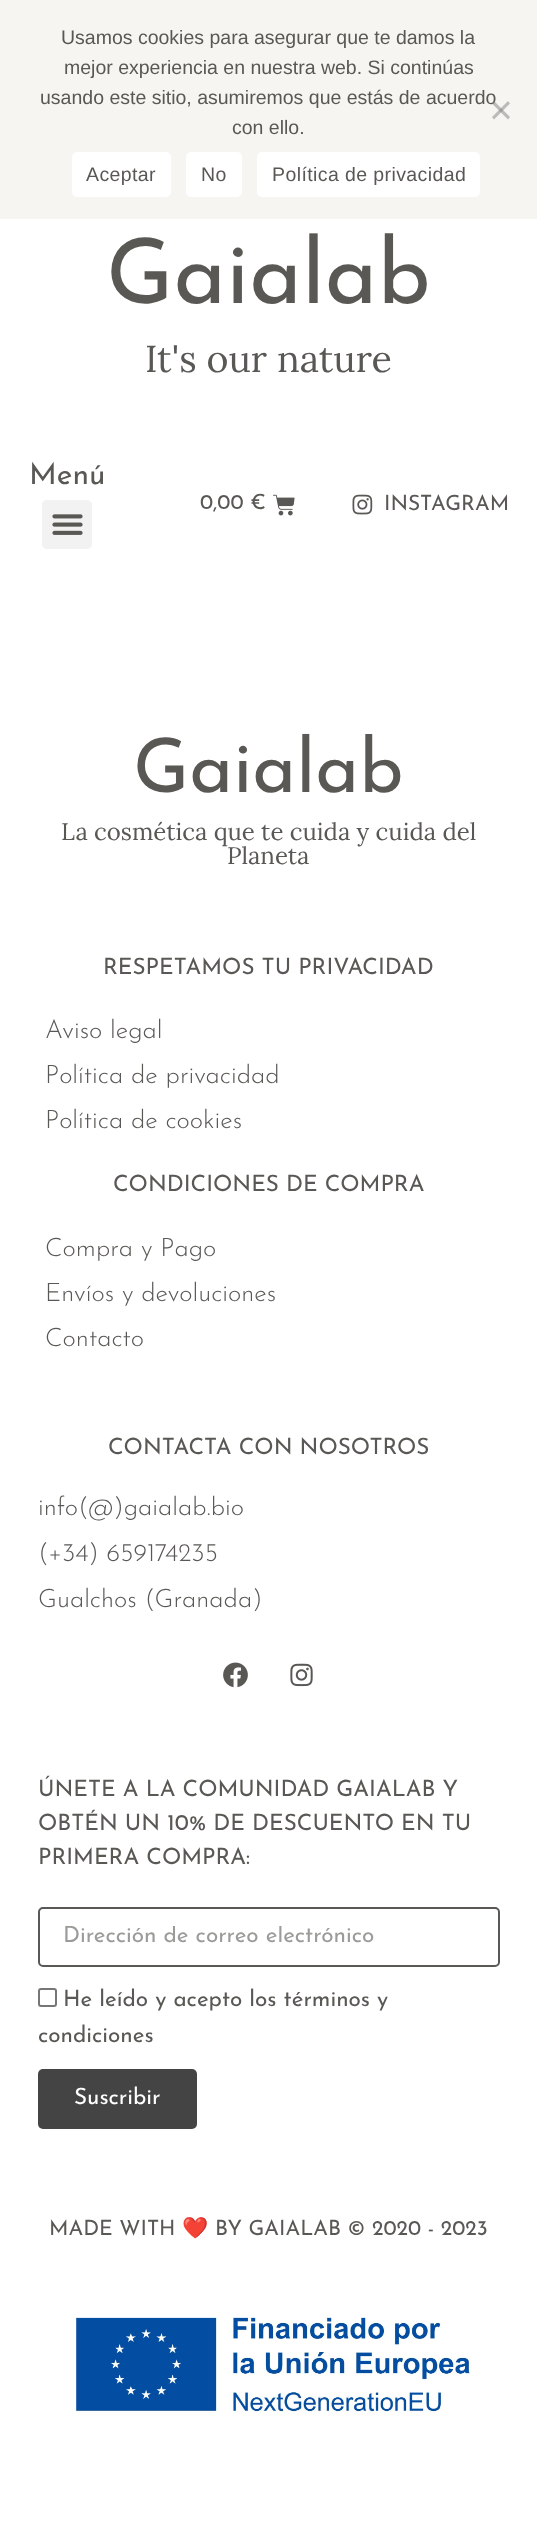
async function draw(canvas) {
  canvas.width = 537
  canvas.height = 2535
  const ctx = canvas.getContext('2d')
  ctx.miterLimit = 4
  ctx.fontKerning = 'normal'
  async function loadImage(src) {
    const img = new Image()
    img.src = src
    await img.decode()
    return img
  }

  ctx.fillStyle = '#fff'
  ctx.fillRect(0, 0, 537, 2535)
  ctx.fillStyle = '#f6f5f2'
  ctx.fillRect(0, 0, 537, 219)
  ctx.font = '19.5px Liberation Sans'
  ctx.fillStyle = '#595854'
  ctx.fillText('Usamos cookies para asegurar que te damos la', 61, 44)
  ctx.fillText('mejor experiencia en nuestra web. Si continúas', 64, 74)
  ctx.fillText('usando este sitio, asumiremos que estás de acuerdo', 40, 104)
  ctx.fillText('con ello.', 232, 134)
  ctx.fillStyle = '#bbbbb9'
  ctx.beginPath()
  ctx.moveTo(508, 101)
  ctx.lineTo(510, 103.5)
  ctx.lineTo(494, 119.5)
  ctx.lineTo(492, 117)
  ctx.closePath()
  ctx.fill()
  ctx.fillStyle = '#80808080'
  ctx.beginPath()
  ctx.moveTo(492, 103.5)
  ctx.lineTo(494, 101)
  ctx.lineTo(510, 117)
  ctx.lineTo(508, 119.5)
  ctx.closePath()
  ctx.fill()
  ctx.fillStyle = '#fff'
  ctx.beginPath()
  ctx.roundRect(72, 152, 99, 45, 5)
  ctx.fill()
  ctx.letterSpacing = '0.4px'
  ctx.fillStyle = '#595854'
  ctx.fillText('Aceptar', 86, 181)
  ctx.fillStyle = '#fff'
  ctx.beginPath()
  ctx.roundRect(186, 152, 56, 45, 5)
  ctx.fill()
  ctx.fillStyle = '#595854'
  ctx.fillText('No', 201, 181)
  ctx.fillStyle = '#fff'
  ctx.beginPath()
  ctx.roundRect(257, 152, 223, 45, 5)
  ctx.fill()
  ctx.fillStyle = '#595854'
  ctx.fillText('Política de privacidad', 272, 181)
  ctx.letterSpacing = '0px'
  ctx.font = '90px Josefin Sans'
  ctx.fillText('Gaialab', 106, 303)
  ctx.font = '37.5px Lora'
  ctx.fillText('It\'s our nature', 145, 372)
  ctx.font = '30px Josefin Sans'
  ctx.fillText('Menú', 29, 484)
  ctx.fillStyle = '#f2f2f2'
  ctx.beginPath()
  ctx.roundRect(42, 500, 50, 49, 5)
  ctx.fill()
  ctx.drawImage(await loadImage('image0.png'), 52, 514, 31, 21)
  ctx.font = '21px Josefin Sans'
  ctx.fillStyle = '#595854'
  ctx.fillText('0,00 €', 200, 509)
  ctx.drawImage(await loadImage('image1.png'), 273, 494, 22, 22)
  ctx.drawImage(await loadImage('image2.png'), 352, 494, 21, 21)
  ctx.fillText('INSTAGRAM', 384, 510)
  ctx.font = '75px Josefin Sans'
  ctx.fillText('Gaialab', 133, 792)
  ctx.font = '24px Lora'
  ctx.fillText('La cosmética que te cuida y cuida del', 61, 840)
  ctx.fillText('Planeta', 227, 864)
  ctx.font = '22.5px Josefin Sans'
  ctx.fillText('RESPETAMOS TU PRIVACIDAD', 103, 974)
  ctx.font = '300 25.5px Josefin Sans'
  ctx.fillText('Aviso legal', 45, 1038)
  ctx.fillText('Política de privacidad', 45, 1083)
  ctx.fillText('Política de cookies', 45, 1128)
  ctx.font = '22.5px Josefin Sans'
  ctx.fillText('CONDICIONES DE COMPRA', 113, 1191)
  ctx.font = '300 25.5px Josefin Sans'
  ctx.fillText('Compra y Pago', 45, 1256)
  ctx.fillText('Envíos y devoluciones', 45, 1301)
  ctx.fillText('Contacto', 45, 1346)
  ctx.font = '22.5px Josefin Sans'
  ctx.fillText('CONTACTA CON NOSOTROS', 108, 1454)
  ctx.font = '300 25.5px Josefin Sans'
  ctx.fillText('info(@)gaialab.bio', 38, 1515)
  ctx.fillText('(+34) 659174235', 38, 1561)
  ctx.fillText('Gualchos (Granada)', 38, 1607)
  ctx.drawImage(await loadImage('image3.png'), 223, 1662, 25, 26)
  ctx.drawImage(await loadImage('image4.png'), 290, 1663, 23, 24)
  ctx.font = '22.5px Josefin Sans'
  ctx.fillText('ÚNETE A LA COMUNIDAD GAIALAB Y', 38, 1796)
  ctx.fillText('OBTÉN UN 10% DE DESCUENTO EN TU', 38, 1830)
  ctx.fillText('PRIMERA COMPRA:', 38, 1864)
  ctx.beginPath()
  ctx.roundRect(39, 1908, 460, 58, 4)
  ctx.strokeStyle = '#595854'
  ctx.lineWidth = 2
  ctx.stroke()
  ctx.save()
  ctx.beginPath()
  ctx.rect(63, 1926, 411, 23)
  ctx.clip()
  ctx.fillStyle = '#9b9b98'
  ctx.fillText('Dirección de correo electrónico', 63, 1942)
  ctx.restore()
  ctx.beginPath()
  ctx.roundRect(39, 1989, 17, 17, 2)
  ctx.strokeStyle = '#767676'
  ctx.stroke()
  ctx.fillText('He leído y acepto los términos y', 63, 2006)
  ctx.fillText('condiciones', 38, 2042)
  ctx.fillStyle = '#444'
  ctx.beginPath()
  ctx.roundRect(38, 2069, 159, 60, 5)
  ctx.fill()
  ctx.fillStyle = '#fff'
  ctx.fillText('Suscribir', 74, 2104)
  ctx.font = '21px Josefin Sans'
  ctx.fillStyle = '#595854'
  ctx.fillText('MADE WITH', 49, 2235)
  ctx.font = '21px Noto Color Emoji'
  ctx.fillText('❤️', 182, 2235)
  ctx.font = '21px Josefin Sans'
  ctx.fillText('BY GAIALAB © 2020 - 2023', 215, 2235)
  ctx.drawImage(await loadImage('image5.png'), 76, 2317, 394, 96)
}

draw(document.querySelector('canvas'))
